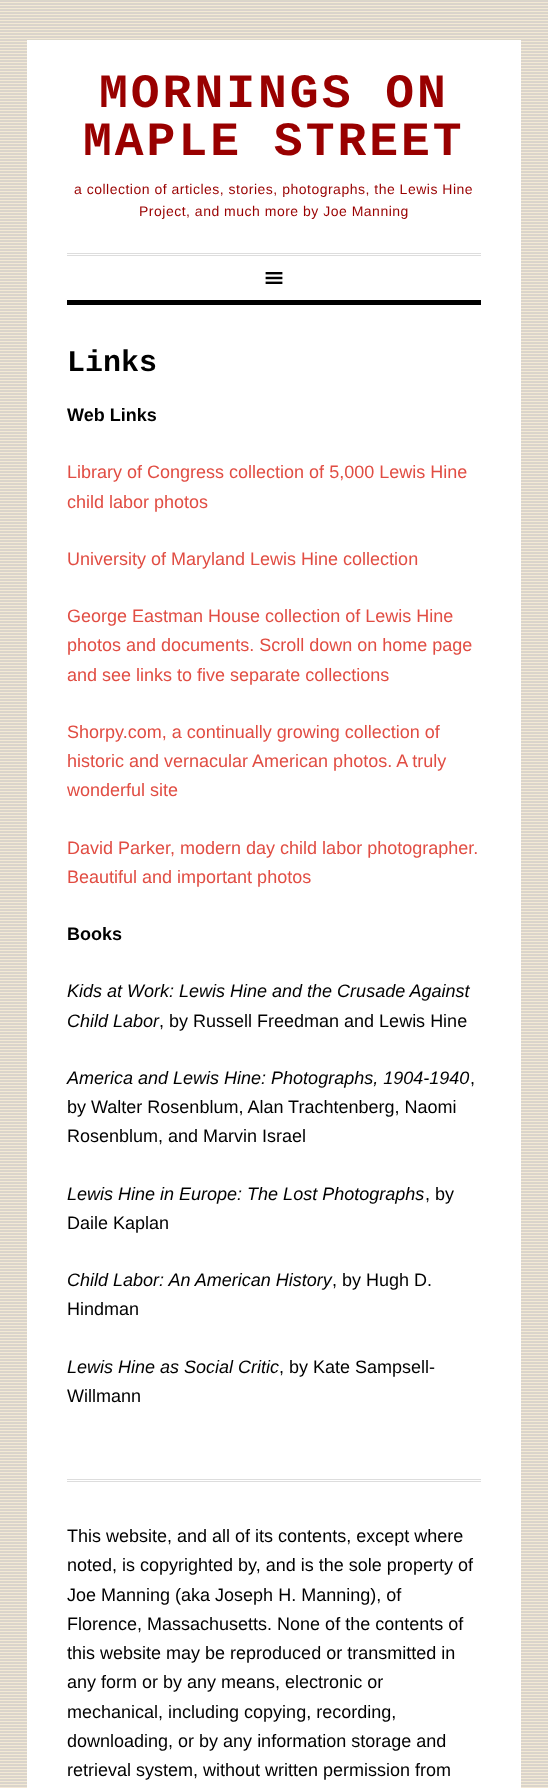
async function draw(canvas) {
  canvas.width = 548
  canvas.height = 1788
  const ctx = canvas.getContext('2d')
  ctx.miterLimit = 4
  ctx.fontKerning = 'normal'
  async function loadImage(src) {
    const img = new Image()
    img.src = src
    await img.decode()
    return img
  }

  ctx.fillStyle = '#fff'
  ctx.fillRect(0, 0, 548, 1788)
  ctx.drawImage(await loadImage('image0.png'), 0, 0, 548, 1788)
  ctx.fillRect(27, 40, 494, 1748)
  ctx.letterSpacing = '3px'
  ctx.font = 'bold 48px Liberation Mono'
  ctx.fillStyle = '#900'
  ctx.fillText('MORNINGS ON', 99, 107)
  ctx.fillText('MAPLE STREET', 83, 155)
  ctx.letterSpacing = '0.5px'
  ctx.font = '14px Liberation Sans'
  ctx.fillText('a collection of articles, stories, photographs, the Lewis Hine', 74, 194)
  ctx.fillText('Project, and much more by Joe Manning', 139, 216)
  ctx.fillStyle = '#ddd'
  ctx.fillRect(67, 253, 414, 1)
  ctx.fillRect(67, 255, 414, 1)
  ctx.fillStyle = '#000'
  ctx.fillRect(67, 300, 414, 5)
  ctx.drawImage(await loadImage('image1.png'), 265, 272, 18, 12)
  ctx.letterSpacing = '0px'
  ctx.font = 'bold 30px Liberation Mono'
  ctx.fillText('Links', 67, 371)
  ctx.font = 'bold 18px Liberation Sans'
  ctx.fillText('Web Links', 67, 421)
  ctx.font = '18px Liberation Sans'
  ctx.fillStyle = '#e14d43'
  ctx.fillText('Library of Congress collection of 5,000 Lewis Hine', 67, 478)
  ctx.fillText('child labor photos', 67, 508)
  ctx.fillText('University of Maryland Lewis Hine collection', 67, 565)
  ctx.fillText('George Eastman House collection of Lewis Hine', 67, 622)
  ctx.fillText('photos and documents. Scroll down on home page', 67, 651)
  ctx.fillText('and see links to five separate collections', 67, 681)
  ctx.fillText('Shorpy.com, a continually growing collection of', 67, 738)
  ctx.fillText('historic and vernacular American photos. A truly', 67, 767)
  ctx.fillText('wonderful site', 67, 796)
  ctx.fillText('David Parker, modern day child labor photographer.', 67, 854)
  ctx.fillText('Beautiful and important photos', 67, 883)
  ctx.font = 'bold 18px Liberation Sans'
  ctx.fillStyle = '#000'
  ctx.fillText('Books', 67, 940)
  ctx.font = 'italic 18px Liberation Sans'
  ctx.fillText('Kids at Work: Lewis Hine and the Crusade Against', 67, 997)
  ctx.fillText('Child Labor', 67, 1027)
  ctx.font = '18px Liberation Sans'
  ctx.fillText(', by Russell Freedman and Lewis Hine', 159, 1027)
  ctx.font = 'italic 18px Liberation Sans'
  ctx.fillText('America and Lewis Hine: Photographs, 1904-1940', 67, 1084)
  ctx.font = '18px Liberation Sans'
  ctx.fillText(',', 470, 1084)
  ctx.fillText('by Walter Rosenblum, Alan Trachtenberg, Naomi', 67, 1113)
  ctx.fillText('Rosenblum, and Marvin Israel', 67, 1142)
  ctx.font = 'italic 18px Liberation Sans'
  ctx.fillText('Lewis Hine in Europe: The Lost Photographs', 67, 1200)
  ctx.font = '18px Liberation Sans'
  ctx.fillText(', by', 425, 1200)
  ctx.fillText('Daile Kaplan', 67, 1229)
  ctx.font = 'italic 18px Liberation Sans'
  ctx.fillText('Child Labor: An American History', 67, 1286)
  ctx.font = '18px Liberation Sans'
  ctx.fillText(', by Hugh D.', 332, 1286)
  ctx.fillText('Hindman', 67, 1315)
  ctx.font = 'italic 18px Liberation Sans'
  ctx.fillText('Lewis Hine as Social Critic', 67, 1373)
  ctx.font = '18px Liberation Sans'
  ctx.fillText(', by Kate Sampsell-', 279, 1373)
  ctx.fillText('Willmann', 67, 1402)
  ctx.fillStyle = '#ddd'
  ctx.fillRect(67, 1479, 414, 1)
  ctx.fillRect(67, 1481, 414, 1)
  ctx.fillStyle = '#000'
  ctx.fillText('This website, and all of its contents, except where', 67, 1542)
  ctx.fillText('noted, is copyrighted by, and is the sole property of', 67, 1571)
  ctx.fillText('Joe Manning (aka Joseph H. Manning), of', 67, 1601)
  ctx.fillText('Florence, Massachusetts. None of the contents of', 67, 1630)
  ctx.fillText('this website may be reproduced or transmitted in', 67, 1659)
  ctx.fillText('any form or by any means, electronic or', 67, 1688)
  ctx.fillText('mechanical, including copying, recording,', 67, 1718)
  ctx.fillText('downloading, or by any information storage and', 67, 1747)
  ctx.fillText('retrieval system, without written permission from', 67, 1776)
}

draw(document.querySelector('canvas'))
